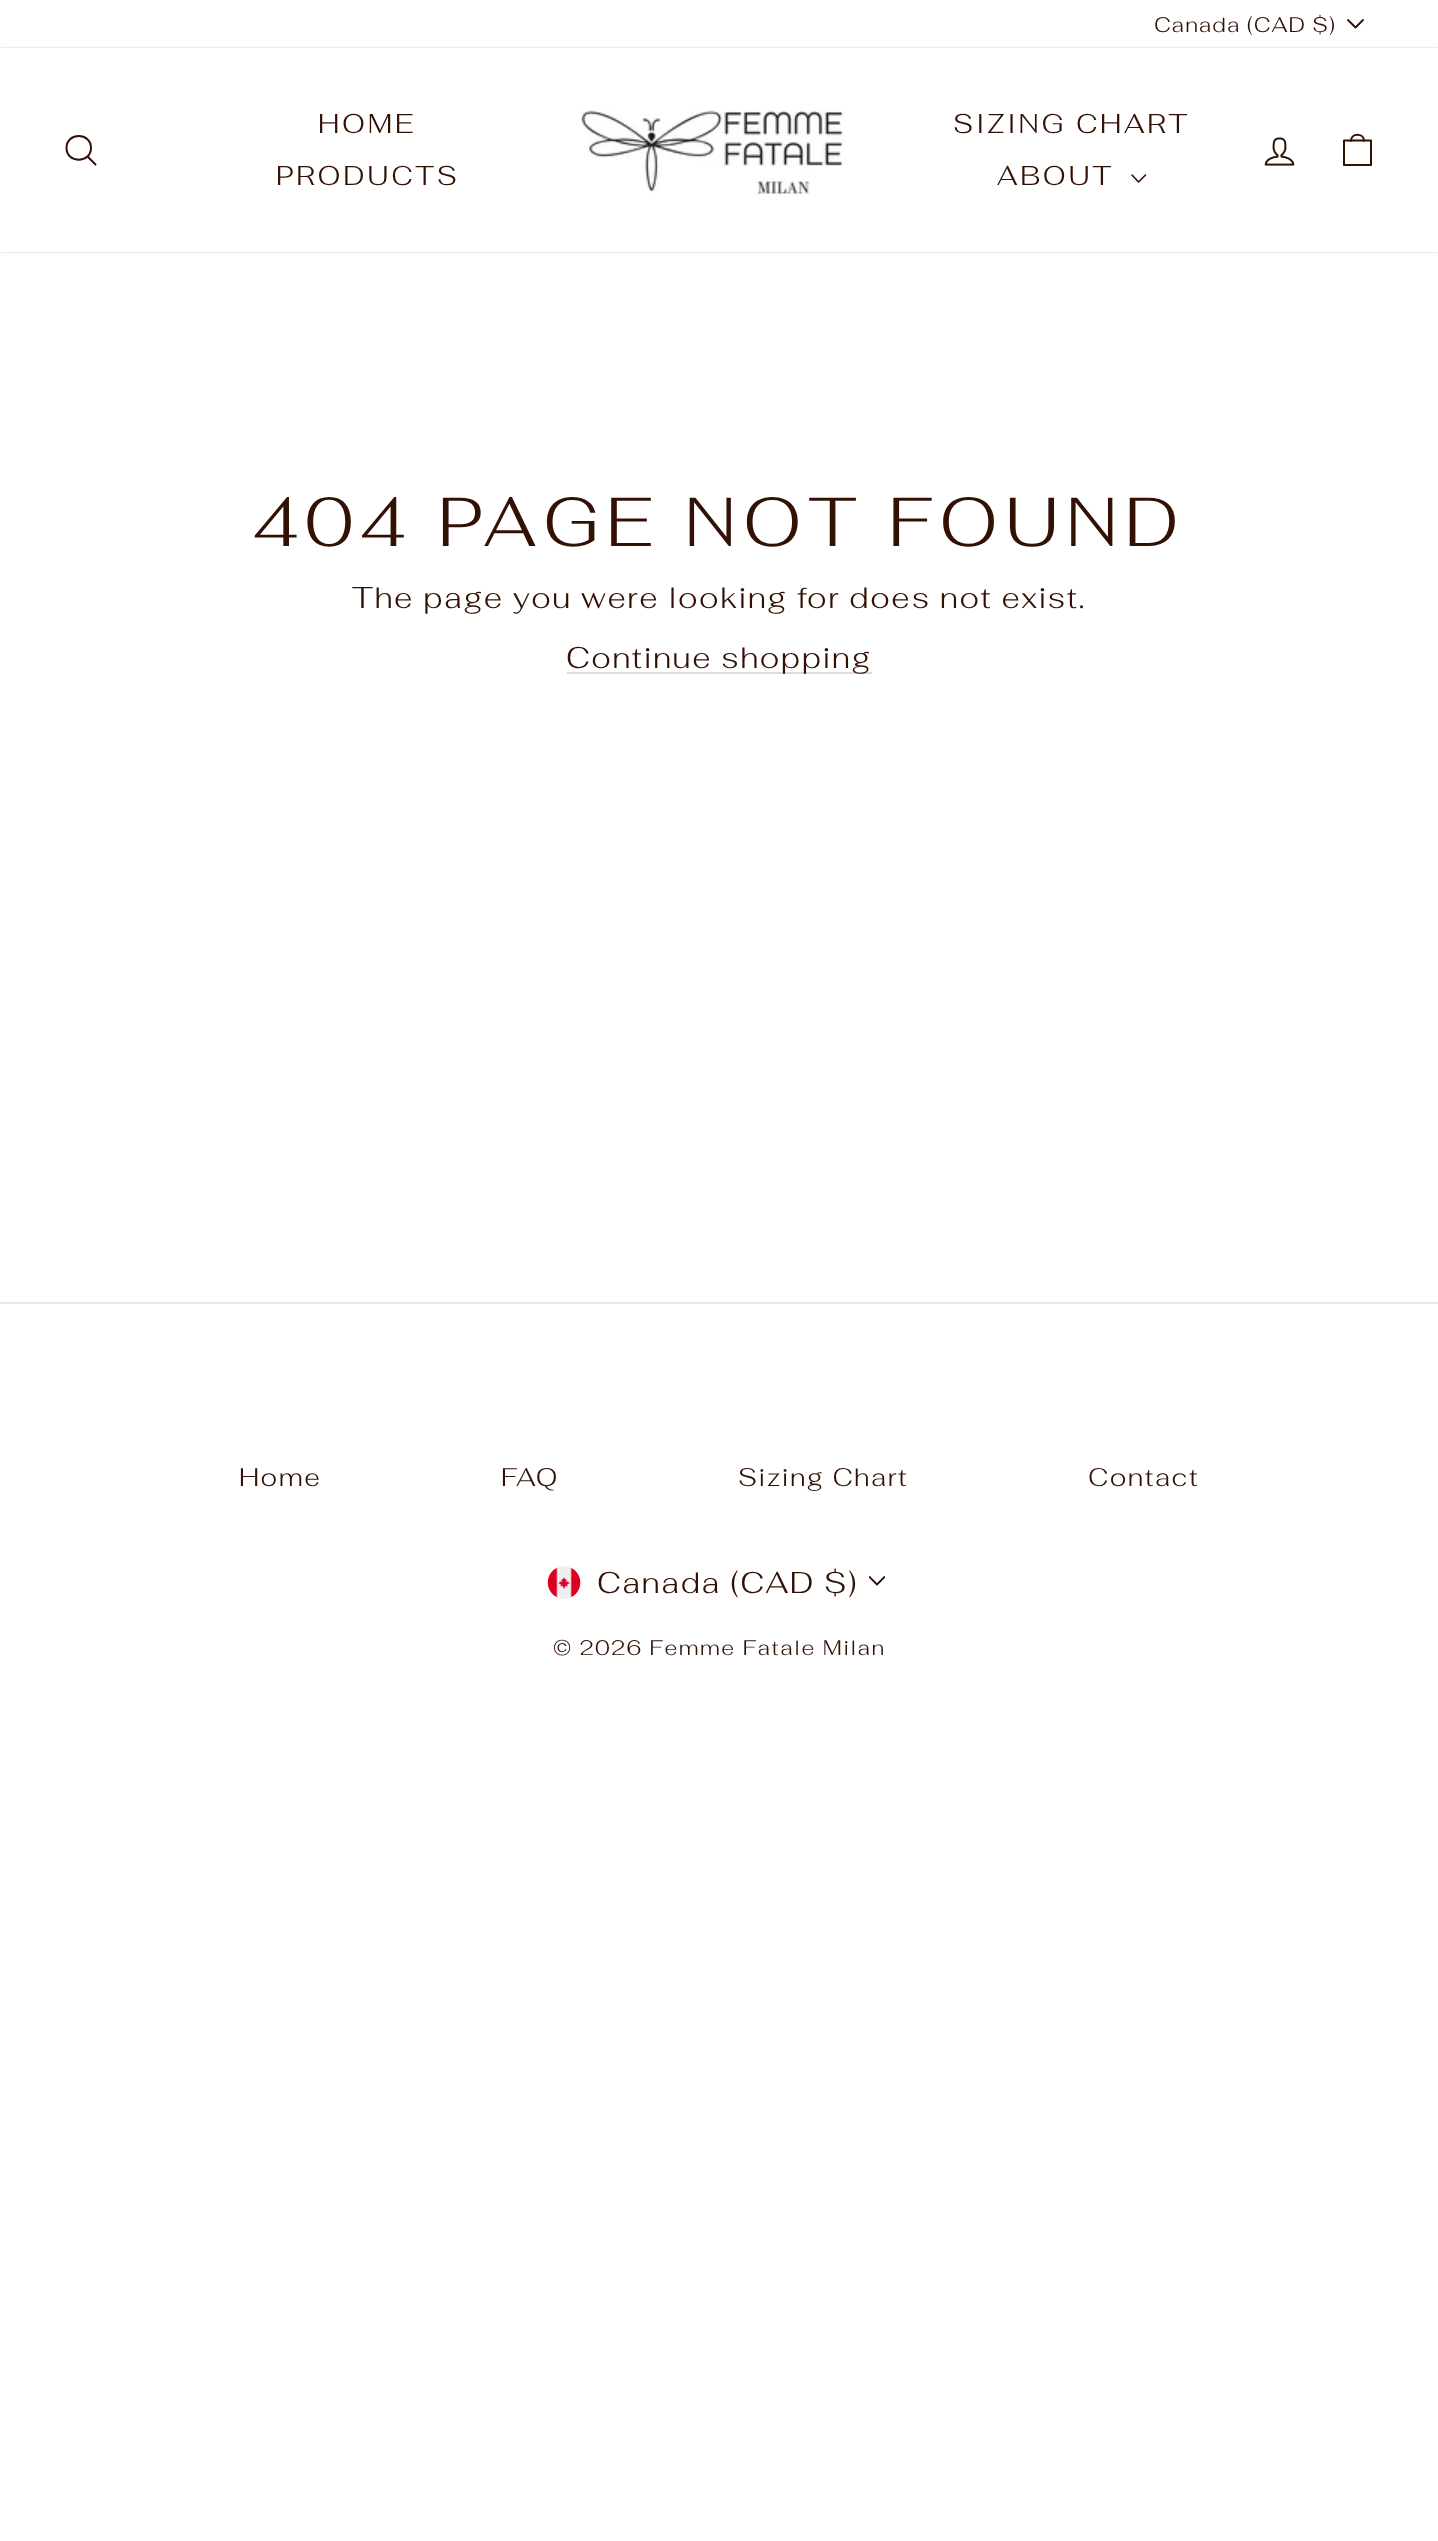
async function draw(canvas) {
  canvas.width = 1438
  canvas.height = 2541
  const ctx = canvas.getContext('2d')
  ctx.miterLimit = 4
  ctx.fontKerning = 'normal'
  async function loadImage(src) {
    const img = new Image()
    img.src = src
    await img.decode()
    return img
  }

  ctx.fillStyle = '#fff'
  ctx.fillRect(0, 0, 1438, 2541)
  ctx.letterSpacing = '1px'
  ctx.font = '300 21px Fahkwang'
  ctx.fillStyle = '#321004'
  ctx.fillText('Canada (CAD $)', 1154, 32)
  ctx.beginPath()
  ctx.moveTo(1348, 20)
  ctx.lineTo(1355.5, 27.5)
  ctx.lineTo(1363, 20)
  ctx.strokeStyle = '#321004'
  ctx.lineWidth = 1.8
  ctx.lineCap = 'round'
  ctx.lineJoin = 'round'
  ctx.stroke()
  ctx.save()
  ctx.beginPath()
  ctx.moveTo(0, 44)
  ctx.lineTo(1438, 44)
  ctx.lineTo(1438, 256)
  ctx.lineTo(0, 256)
  ctx.closePath()
  ctx.moveTo(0, 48)
  ctx.lineTo(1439, 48)
  ctx.lineTo(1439, 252)
  ctx.lineTo(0, 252)
  ctx.closePath()
  ctx.clip('evenodd')
  ctx.fillStyle = '#00000033'
  ctx.filter = 'blur(1px)'
  ctx.beginPath()
  ctx.rect(0, 48, 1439, 204)
  ctx.fill()
  ctx.filter = 'none'
  ctx.restore()
  ctx.beginPath()
  ctx.moveTo(91, 148)
  ctx.bezierCurveTo(91, 163.5, 66.5, 163.5, 66.5, 148)
  ctx.bezierCurveTo(66.5, 132, 91, 132, 91, 148)
  ctx.closePath()
  ctx.moveTo(95.5, 164.5)
  ctx.lineTo(87.5, 156.5)
  ctx.lineWidth = 2
  ctx.stroke()
  ctx.letterSpacing = '2.75px'
  ctx.font = '300 27px Fahkwang'
  ctx.fillText('HOME', 318, 133)
  ctx.fillText('PRODUCTS', 276, 185)
  ctx.drawImage(await loadImage('image0.png'), 581, 110, 265, 85)
  ctx.fillText('SIZING CHART', 953, 133)
  ctx.fillText('ABOUT', 997, 185)
  ctx.beginPath()
  ctx.moveTo(1132, 175)
  ctx.lineTo(1138.5, 182)
  ctx.lineTo(1145.5, 175)
  ctx.lineWidth = 1.6
  ctx.stroke()
  ctx.drawImage(await loadImage('image1.png'), 1264, 137, 31, 29)
  ctx.beginPath()
  ctx.moveTo(1344, 140.5)
  ctx.lineTo(1371, 140.5)
  ctx.lineTo(1371, 165)
  ctx.lineTo(1344, 165)
  ctx.closePath()
  ctx.moveTo(1351, 141)
  ctx.bezierCurveTo(1351, 132.5, 1364, 132.5, 1364, 141)
  ctx.lineWidth = 2
  ctx.stroke()
  ctx.letterSpacing = '6.9px'
  ctx.font = '300 69px Fahkwang'
  ctx.fillText('404 PAGE NOT FOUND', 252, 546)
  ctx.letterSpacing = '1.5px'
  ctx.font = '300 30px Fahkwang'
  ctx.fillText('The page you were looking for does not exist.', 352, 608)
  ctx.fillStyle = '#e0dbd9'
  ctx.fillRect(567, 672, 305, 2)
  ctx.fillStyle = '#321004'
  ctx.fillText('Continue shopping', 566, 668)
  ctx.fillStyle = '#e8e8e1'
  ctx.fillRect(0, 1302, 1438, 2)
  ctx.font = '300 25.5px Fahkwang'
  ctx.fillStyle = '#321004'
  ctx.fillText('Home', 239, 1486)
  ctx.fillText('FAQ', 501, 1486)
  ctx.fillText('Sizing Chart', 738, 1486)
  ctx.fillText('Contact', 1088, 1486)
  ctx.drawImage(await loadImage('image2.png'), 547, 1566, 34, 33)
  ctx.font = '300 30px Fahkwang'
  ctx.fillText('Canada (CAD $)', 597, 1593)
  ctx.save()
  ctx.beginPath()
  ctx.rect(869, 1574, 16, 16)
  ctx.clip()
  ctx.beginPath()
  ctx.moveTo(869.5, 1577)
  ctx.lineTo(877, 1584.5)
  ctx.lineTo(884.5, 1577)
  ctx.lineWidth = 1.8
  ctx.stroke()
  ctx.restore()
  ctx.font = '300 21px Fahkwang'
  ctx.fillText('© 2026 Femme Fatale Milan', 553, 1655)
}

draw(document.querySelector('canvas'))
